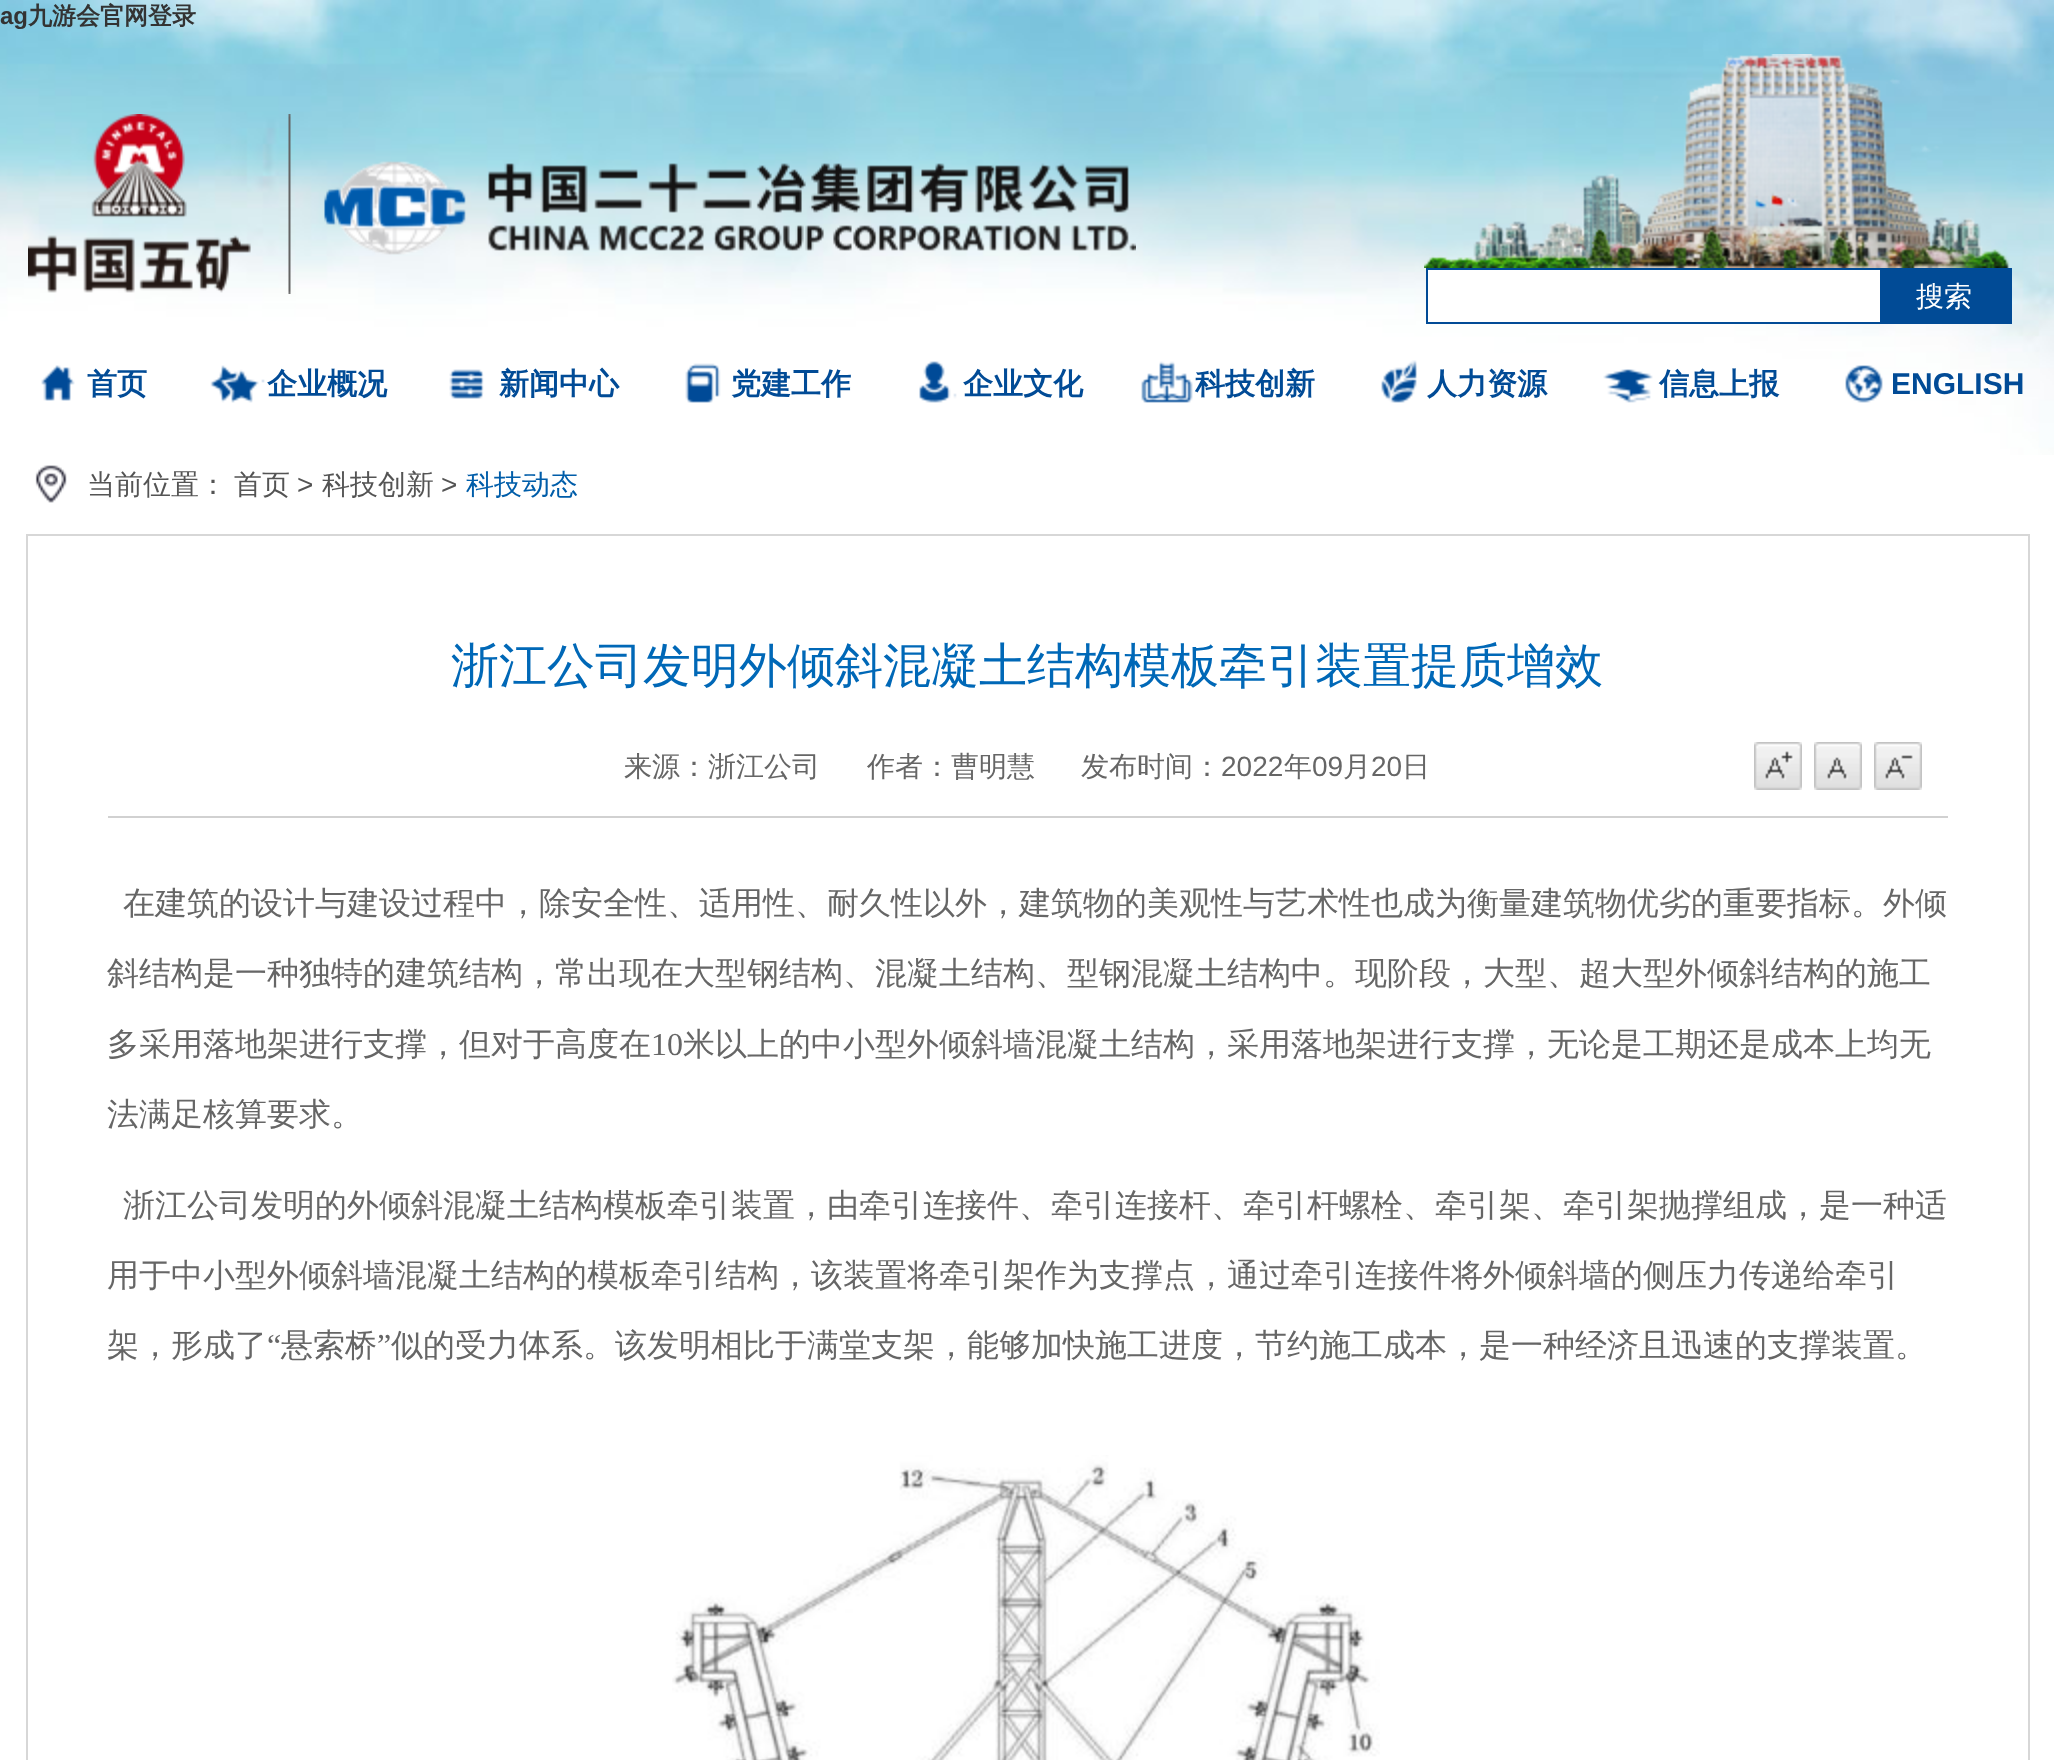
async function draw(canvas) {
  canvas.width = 2054
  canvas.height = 1760
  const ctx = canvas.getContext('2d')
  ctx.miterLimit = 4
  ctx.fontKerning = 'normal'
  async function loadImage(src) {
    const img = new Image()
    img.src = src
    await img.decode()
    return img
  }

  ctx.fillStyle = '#fff'
  ctx.fillRect(0, 0, 2054, 1760)
  ctx.drawImage(await loadImage('image0.png'), 0, 0, 2054, 455)
  ctx.font = 'bold 24px Liberation Sans'
  ctx.fillStyle = '#333'
  ctx.fillText('ag', 0, 24)
  ctx.font = 'bold 24px WenQuanYi Zen Hei'
  ctx.fillText('九游会官网登录', 28, 24)
  ctx.drawImage(await loadImage('image1.png'), 28, 114, 1108, 180)
  ctx.drawImage(await loadImage('image2.png'), 1424, 54, 586, 214)
  ctx.fillStyle = '#fff'
  ctx.fillRect(1428, 270, 452, 52)
  ctx.strokeStyle = '#014b96'
  ctx.lineWidth = 2
  ctx.strokeRect(1427, 269, 584, 54)
  ctx.fillStyle = '#014b96'
  ctx.fillRect(1880, 270, 130, 52)
  ctx.font = '500 28px WenQuanYi Zen Hei'
  ctx.fillStyle = '#fff'
  ctx.fillText('搜索', 1916, 306)
  ctx.drawImage(await loadImage('image3.png'), 41, 365, 34, 36)
  ctx.font = 'bold 30px WenQuanYi Zen Hei'
  ctx.fillStyle = '#014b96'
  ctx.fillText('首页', 87, 394)
  ctx.drawImage(await loadImage('image4.png'), 210, 365, 55, 38)
  ctx.fillText('企业概况', 267, 394)
  ctx.drawImage(await loadImage('image5.png'), 449, 369, 35, 30)
  ctx.fillText('新闻中心', 499, 394)
  ctx.drawImage(await loadImage('image6.png'), 685, 363, 36, 40)
  ctx.fillText('党建工作', 731, 394)
  ctx.drawImage(await loadImage('image7.png'), 919, 361, 38, 42)
  ctx.fillText('企业文化', 963, 394)
  ctx.drawImage(await loadImage('image8.png'), 1141, 361, 52, 42)
  ctx.fillText('科技创新', 1195, 394)
  ctx.drawImage(await loadImage('image9.png'), 1381, 360, 36, 43)
  ctx.fillText('人力资源', 1427, 394)
  ctx.drawImage(await loadImage('image10.png'), 1603, 369, 50, 34)
  ctx.fillText('信息上报', 1659, 394)
  ctx.drawImage(await loadImage('image11.png'), 1845, 365, 38, 38)
  ctx.font = 'bold 30px Liberation Sans'
  ctx.fillText('ENGLISH', 1891, 394)
  ctx.drawImage(await loadImage('image12.png'), 35, 465, 32, 38)
  ctx.font = '500 28px WenQuanYi Zen Hei'
  ctx.fillStyle = '#545454'
  ctx.fillText('当前位置：', 87, 494)
  ctx.fillText('首页', 234, 494)
  ctx.font = '28px Liberation Sans'
  ctx.fillText('>', 297, 494)
  ctx.font = '500 28px WenQuanYi Zen Hei'
  ctx.fillText('科技创新', 322, 494)
  ctx.font = '28px Liberation Sans'
  ctx.fillText('>', 441, 494)
  ctx.font = '500 28px WenQuanYi Zen Hei'
  ctx.fillStyle = '#005da9'
  ctx.fillText('科技动态', 466, 494)
  ctx.strokeStyle = '#d7d7d7'
  ctx.strokeRect(27, 535, 2002, 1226)
  ctx.font = '500 48px WenQuanYi Zen Hei'
  ctx.fillStyle = '#0068b7'
  ctx.fillText('浙江公司发明外倾斜混凝土结构模板牵引装置提质增效', 451, 682)
  ctx.fillStyle = '#d1d1d1'
  ctx.fillRect(108, 816, 1840, 2)
  ctx.font = '500 28px WenQuanYi Zen Hei'
  ctx.fillStyle = '#666'
  ctx.fillText('来源：浙江公司', 624, 776)
  ctx.fillText('作者：曹明慧', 867, 776)
  ctx.fillText('发布时间：', 1081, 776)
  ctx.font = '28px Liberation Sans'
  ctx.fillText('2022', 1221, 776)
  ctx.font = '500 28px WenQuanYi Zen Hei'
  ctx.fillText('年', 1284, 776)
  ctx.font = '28px Liberation Sans'
  ctx.fillText('09', 1312, 776)
  ctx.font = '500 28px WenQuanYi Zen Hei'
  ctx.fillText('月', 1343, 776)
  ctx.font = '28px Liberation Sans'
  ctx.fillText('20', 1371, 776)
  ctx.font = '500 28px WenQuanYi Zen Hei'
  ctx.fillText('日', 1402, 776)
  ctx.drawImage(await loadImage('image13.png'), 1754, 742, 48, 48)
  ctx.drawImage(await loadImage('image14.png'), 1814, 742, 48, 48)
  ctx.drawImage(await loadImage('image15.png'), 1874, 742, 48, 48)
  ctx.font = '500 32px WenQuanYi Zen Hei'
  ctx.fillText('在建筑的设计与建设过程中，除安全性、适用性、耐久性以外，建筑物的美观性与艺术性也成为衡量建筑物优劣的重要指标。外倾', 123, 914)
  ctx.fillText('斜结构是一种独特的建筑结构，常出现在大型钢结构、混凝土结构、型钢混凝土结构中。现阶段，大型、超大型外倾斜结构的施工', 107, 984)
  ctx.fillText('多采用落地架进行支撑，但对于高度在', 107, 1055)
  ctx.font = '32px Liberation Serif'
  ctx.fillText('10', 651, 1055)
  ctx.font = '500 32px WenQuanYi Zen Hei'
  ctx.fillText('米以上的中小型外倾斜墙混凝土结构，采用落地架进行支撑，无论是工期还是成本上均无', 683, 1055)
  ctx.fillText('法满足核算要求。', 107, 1125)
  ctx.fillText('浙江公司发明的外倾斜混凝土结构模板牵引装置，由牵引连接件、牵引连接杆、牵引杆螺栓、牵引架、牵引架抛撑组成，是一种适', 123, 1216)
  ctx.fillText('用于中小型外倾斜墙混凝土结构的模板牵引结构，该装置将牵引架作为支撑点，通过牵引连接件将外倾斜墙的侧压力传递给牵引', 107, 1286)
  ctx.fillText('架，形成了', 107, 1356)
  ctx.font = '32px Liberation Serif'
  ctx.fillText('“', 267, 1356)
  ctx.font = '500 32px WenQuanYi Zen Hei'
  ctx.fillText('悬索桥', 281, 1356)
  ctx.font = '32px Liberation Serif'
  ctx.fillText('”', 377, 1356)
  ctx.font = '500 32px WenQuanYi Zen Hei'
  ctx.fillText('似的受力体系。该发明相比于满堂支架，能够加快施工进度，节约施工成本，是一种经济且迅速的支撑装置。', 391, 1356)
  ctx.drawImage(await loadImage('image16.png'), 672, 1455, 708, 305)
}

draw(document.querySelector('canvas'))
